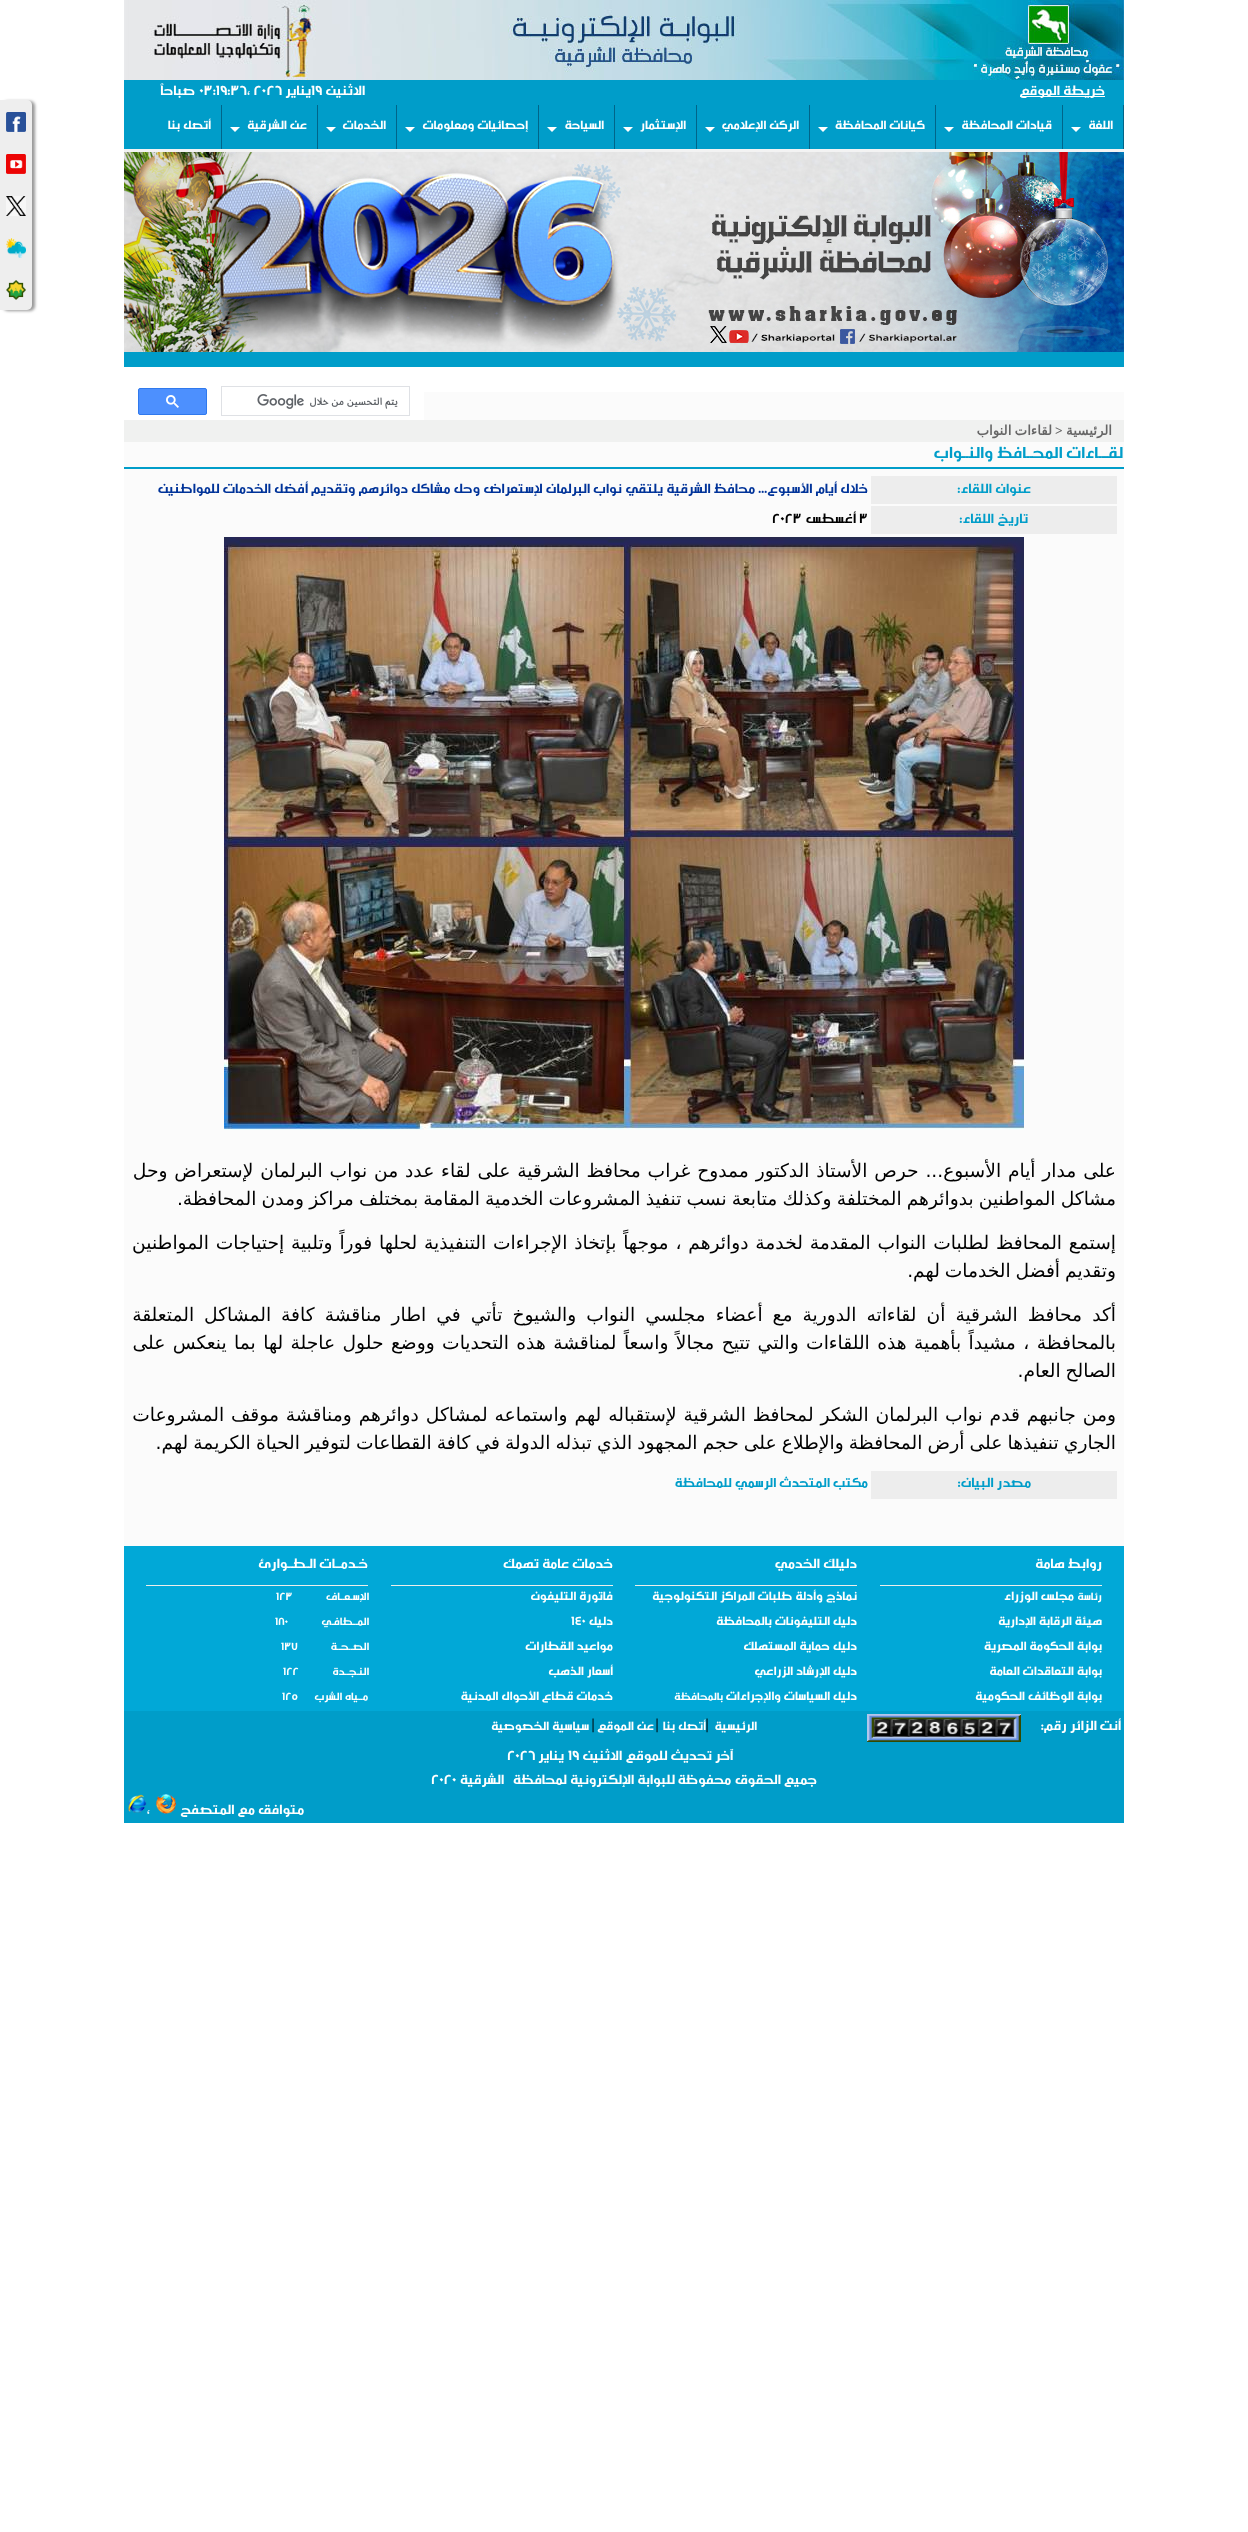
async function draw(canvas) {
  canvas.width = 1248
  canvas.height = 2532
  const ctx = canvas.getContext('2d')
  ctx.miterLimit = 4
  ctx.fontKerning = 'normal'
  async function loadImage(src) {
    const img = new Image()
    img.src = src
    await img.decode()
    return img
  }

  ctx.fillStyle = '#fff'
  ctx.fillRect(0, 0, 1248, 2532)
  ctx.fillStyle = '#fbfbfb'
  ctx.fillRect(124, 392, 1000, 1154)
  ctx.drawImage(await loadImage('image0.png'), 124, 0, 1000, 80)
  ctx.fillStyle = '#009dc9'
  ctx.fillRect(124, 80, 1000, 25)
  ctx.fillStyle = '#fff'
  ctx.fillRect(1020, 96, 85, 1)
  ctx.direction = 'rtl'
  ctx.font = '13.33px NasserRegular'
  ctx.fillText('خريطة الموقع', 1105, 95)
  ctx.fillText('الاثنين', 365, 95)
  ctx.direction = 'ltr'
  ctx.fillText('19', 311, 95)
  ctx.direction = 'rtl'
  ctx.fillText('يناير', 311, 95)
  ctx.direction = 'ltr'
  ctx.fillText('03:19:36، 2026', 199, 95)
  ctx.direction = 'rtl'
  ctx.fillText('صباحاً', 195, 95)
  ctx.fillStyle = '#009dc9'
  ctx.fillRect(124, 105, 999, 44)
  ctx.fillStyle = '#006589'
  ctx.fillRect(1123, 105, 1, 44)
  ctx.font = '12px NasserRegular'
  ctx.fillStyle = '#fff'
  ctx.fillText('اللغة', 1113, 129)
  ctx.beginPath()
  ctx.moveTo(1071, 127)
  ctx.lineTo(1081, 127)
  ctx.lineTo(1076, 132)
  ctx.closePath()
  ctx.fill()
  ctx.fillStyle = '#006589'
  ctx.fillRect(1062, 105, 1, 44)
  ctx.fillStyle = '#fff'
  ctx.fillText('قيادات المحافظة', 1052, 129)
  ctx.beginPath()
  ctx.moveTo(944, 127)
  ctx.lineTo(954, 127)
  ctx.lineTo(949, 132)
  ctx.closePath()
  ctx.fill()
  ctx.fillStyle = '#006589'
  ctx.fillRect(935, 105, 1, 44)
  ctx.fillStyle = '#fff'
  ctx.fillText('كيانات المحافظة', 925, 129)
  ctx.beginPath()
  ctx.moveTo(818, 127)
  ctx.lineTo(828, 127)
  ctx.lineTo(823, 132)
  ctx.closePath()
  ctx.fill()
  ctx.fillStyle = '#006589'
  ctx.fillRect(809, 105, 1, 44)
  ctx.fillStyle = '#fff'
  ctx.fillText('الركن الإعلامي', 799, 129)
  ctx.beginPath()
  ctx.moveTo(705, 127)
  ctx.lineTo(715, 127)
  ctx.lineTo(710, 132)
  ctx.closePath()
  ctx.fill()
  ctx.fillStyle = '#006589'
  ctx.fillRect(696, 105, 1, 44)
  ctx.fillStyle = '#fff'
  ctx.fillText('الإستثمار', 686, 129)
  ctx.beginPath()
  ctx.moveTo(623, 127)
  ctx.lineTo(633, 127)
  ctx.lineTo(628, 132)
  ctx.closePath()
  ctx.fill()
  ctx.fillStyle = '#006589'
  ctx.fillRect(614, 105, 1, 44)
  ctx.fillStyle = '#fff'
  ctx.fillText('السياحة', 604, 129)
  ctx.beginPath()
  ctx.moveTo(547, 127)
  ctx.lineTo(557, 127)
  ctx.lineTo(552, 132)
  ctx.closePath()
  ctx.fill()
  ctx.fillStyle = '#006589'
  ctx.fillRect(538, 105, 1, 44)
  ctx.fillStyle = '#fff'
  ctx.fillText('إحصائيات ومعلومات', 528, 129)
  ctx.beginPath()
  ctx.moveTo(405, 127)
  ctx.lineTo(415, 127)
  ctx.lineTo(410, 132)
  ctx.closePath()
  ctx.fill()
  ctx.fillStyle = '#006589'
  ctx.fillRect(396, 105, 1, 44)
  ctx.fillStyle = '#fff'
  ctx.fillText('الخدمات', 386, 129)
  ctx.beginPath()
  ctx.moveTo(326, 127)
  ctx.lineTo(336, 127)
  ctx.lineTo(331, 132)
  ctx.closePath()
  ctx.fill()
  ctx.fillStyle = '#006589'
  ctx.fillRect(317, 105, 1, 44)
  ctx.fillStyle = '#fff'
  ctx.fillText('عن الشرقية', 307, 129)
  ctx.beginPath()
  ctx.moveTo(230, 127)
  ctx.lineTo(240, 127)
  ctx.lineTo(235, 132)
  ctx.closePath()
  ctx.fill()
  ctx.fillStyle = '#006589'
  ctx.fillRect(221, 105, 1, 44)
  ctx.fillStyle = '#fff'
  ctx.fillText('أتصل بنا', 211, 129)
  ctx.fillStyle = '#f3f3f3'
  ctx.fillRect(124, 149, 1000, 3)
  ctx.drawImage(await loadImage('image1.png'), 124, 152, 1000, 200)
  ctx.fillStyle = '#009dc9'
  ctx.fillRect(124, 352, 1000, 15)
  ctx.fillStyle = '#fff'
  ctx.fillRect(124, 392, 300, 28)
  ctx.strokeStyle = '#dfe1e5'
  ctx.strokeRect(221.5, 386.5, 188, 29)
  ctx.drawImage(await loadImage('image2.png'), 257, 394, 141, 15)
  ctx.fillStyle = '#4d90fe'
  ctx.beginPath()
  ctx.roundRect(138.5, 388.5, 68, 26, 1.5)
  ctx.fill()
  ctx.strokeStyle = '#3079ed'
  ctx.stroke()
  ctx.drawImage(await loadImage('image3.png'), 166, 395, 13, 13)
  ctx.fillStyle = '#f0f1f0'
  ctx.fillRect(124, 420, 1000, 22)
  ctx.font = 'bold 13.33px DejaVu Sans'
  ctx.fillStyle = '#666'
  ctx.fillText('الرئيسية', 1112, 435)
  ctx.direction = 'ltr'
  ctx.font = 'bold 13.33px Liberation Serif'
  ctx.fillText('>', 1055, 435)
  ctx.wordSpacing = '-1px'
  ctx.direction = 'rtl'
  ctx.font = 'bold 13.33px DejaVu Sans'
  ctx.fillText('لقاءات النواب', 1052, 435)
  ctx.fillStyle = '#009dc9'
  ctx.fillRect(124, 467, 1000, 2)
  ctx.wordSpacing = '0px'
  ctx.font = '16px NasserRegular'
  ctx.fillText('لقـــاءات المحــافظ والنــواب', 1123, 458)
  ctx.fillStyle = '#ededed'
  ctx.fillRect(871, 476, 246, 28)
  ctx.font = '13.33px NasserRegular'
  ctx.fillStyle = '#009dc9'
  ctx.fillText('عنوان اللقاء:', 1031, 493)
  ctx.fillStyle = '#039'
  ctx.fillText('خلال أيام الأسبوع... محافظ الشرقية يلتقي نواب البرلمان لإستعراض وحل مشاكل دوائرهم وتقديم أفضل الخدمات للمواطنين', 868, 493)
  ctx.fillStyle = '#ededed'
  ctx.fillRect(871, 506, 246, 28)
  ctx.fillStyle = '#009dc9'
  ctx.fillText('تاريخ اللقاء:', 1028, 523)
  ctx.direction = 'ltr'
  ctx.fillStyle = '#000'
  ctx.fillText('3', 859, 523)
  ctx.direction = 'rtl'
  ctx.fillText('أغسطس', 856, 523)
  ctx.direction = 'ltr'
  ctx.fillText('2023', 772, 523)
  ctx.drawImage(await loadImage('image4.png'), 224, 537, 800, 593)
  ctx.wordSpacing = '0.9px'
  ctx.direction = 'rtl'
  ctx.font = '18.67px DejaVu Sans'
  ctx.fillText('على مدار أيام الأسبوع... حرص الأستاذ الدكتور ممدوح غراب محافظ الشرقية على لقاء عدد من نواب البرلمان لإستعراض وحل', 1116, 1177)
  ctx.wordSpacing = '-0.8px'
  ctx.fillText('مشاكل المواطنين بدوائرهم المختلفة وكذلك متابعة نسب تنفيذ المشروعات الخدمية المقامة بمختلف مراكز ومدن المحافظة.', 1116, 1205)
  ctx.wordSpacing = '0.9px'
  ctx.fillText('إستمع المحافظ لطلبات النواب المقدمة لخدمة دوائرهم ، موجهاً بإتخاذ الإجراءات التنفيذية لحلها فوراً وتلبية إحتياجات المواطنين', 1116, 1249)
  ctx.wordSpacing = '-1px'
  ctx.fillText('وتقديم أفضل الخدمات لهم.', 1116, 1277)
  ctx.wordSpacing = '4.1px'
  ctx.fillText('أكد محافظ الشرقية أن لقاءاته الدورية مع أعضاء مجلسي النواب والشيوخ تأتي في اطار مناقشة كافة المشاكل المتعلقة', 1116, 1321)
  ctx.wordSpacing = '1.5px'
  ctx.fillText('بالمحافظة ، مشيداً بأهمية هذه اللقاءات والتي تتيح مجالاً واسعاً لمناقشة هذه التحديات ووضع حلول عاجلة لها بما ينعكس على', 1116, 1349)
  ctx.wordSpacing = '-1px'
  ctx.fillText('الصالح العام.', 1116, 1377)
  ctx.wordSpacing = '1px'
  ctx.fillText('ومن جانبهم قدم نواب البرلمان الشكر لمحافظ الشرقية لإستقباله لهم واستماعه لمشاكل دوائرهم ومناقشة موقف المشروعات', 1116, 1421)
  ctx.wordSpacing = '-0.8px'
  ctx.fillText('الجاري تنفيذها على أرض المحافظة والإطلاع على حجم المجهود الذي تبذله الدولة في كافة القطاعات لتوفير الحياة الكريمة لهم.', 1116, 1449)
  ctx.fillStyle = '#ededed'
  ctx.fillRect(871, 1471, 246, 28)
  ctx.wordSpacing = '0px'
  ctx.font = '13.33px NasserRegular'
  ctx.fillStyle = '#009dc9'
  ctx.fillText('مصدر البيان:', 1031, 1487)
  ctx.font = '13px NasserRegular'
  ctx.fillText('مكتب المتحدث الرسمي للمحافظة', 868, 1487)
  ctx.fillStyle = '#01a8d7'
  ctx.fillRect(124, 1546, 1000, 165)
  ctx.fillStyle = '#edeeeb'
  ctx.fillRect(880, 1585, 222, 1)
  ctx.font = '13.33px NasserRegular'
  ctx.fillStyle = '#fff'
  ctx.fillText('روابط هامة', 1102, 1568)
  ctx.fillStyle = '#edeeeb'
  ctx.fillRect(635, 1585, 222, 1)
  ctx.fillStyle = '#fff'
  ctx.fillText('دليلك الخدمي', 857, 1568)
  ctx.fillStyle = '#edeeeb'
  ctx.fillRect(391, 1585, 222, 1)
  ctx.fillStyle = '#fff'
  ctx.fillText('خدمات عامة تهمك', 613, 1568)
  ctx.fillStyle = '#edeeeb'
  ctx.fillRect(146, 1585, 222, 1)
  ctx.fillStyle = '#fff'
  ctx.fillText('خـدمــات الـطــوارئ', 368, 1568)
  ctx.font = '10.5px NasserRegular'
  ctx.fillText('رئاسة', 1102, 1600)
  ctx.font = '12px NasserRegular'
  ctx.fillText('مجلس الوزراء', 1074, 1600)
  ctx.fillText('نماذج وأدلة طلبات المراكز التكنولوجية', 857, 1600)
  ctx.fillText('فاتورة التليفون', 613, 1600)
  ctx.font = '10.5px NasserRegular'
  ctx.fillText('الإسـعــاف', 369, 1600)
  ctx.direction = 'ltr'
  ctx.fillText('123', 276, 1600)
  ctx.direction = 'rtl'
  ctx.font = '12px NasserRegular'
  ctx.fillText('هيئة الرقابة الإدارية', 1102, 1625)
  ctx.fillText('دليل التليفونات بالمحافظة', 857, 1625)
  ctx.fillText('دليل', 613, 1625)
  ctx.direction = 'ltr'
  ctx.fillText('140', 571, 1625)
  ctx.direction = 'rtl'
  ctx.font = '10.5px NasserRegular'
  ctx.fillText('المــطافـي', 369, 1625)
  ctx.direction = 'ltr'
  ctx.fillText('180', 275, 1625)
  ctx.direction = 'rtl'
  ctx.font = '12px NasserRegular'
  ctx.fillText('بوابة الحكومة المصرية', 1102, 1650)
  ctx.fillText('دليل حماية المستهلك', 857, 1650)
  ctx.fillText('مواعيد القطارات', 613, 1650)
  ctx.font = '10.5px NasserRegular'
  ctx.fillText('الصــحــة', 369, 1650)
  ctx.direction = 'ltr'
  ctx.fillText('137', 281, 1650)
  ctx.direction = 'rtl'
  ctx.font = '12px NasserRegular'
  ctx.fillText('بوابة التعاقدات العامة', 1102, 1675)
  ctx.fillText('دليل الإرشاد الزراعي', 857, 1675)
  ctx.fillText('أسعار الذهب', 613, 1675)
  ctx.font = '10.5px NasserRegular'
  ctx.fillText('النـجــدة', 369, 1675)
  ctx.direction = 'ltr'
  ctx.fillText('122', 283, 1675)
  ctx.direction = 'rtl'
  ctx.font = '12px NasserRegular'
  ctx.fillText('بوابة الوظائف الحكومية', 1102, 1700)
  ctx.fillText('دليل السياسات والإجراءات', 857, 1700)
  ctx.font = '10.5px NasserRegular'
  ctx.fillText('بالمحافظة', 723, 1700)
  ctx.font = '12px NasserRegular'
  ctx.fillText('خدمات قطاع الأحوال المدنية', 613, 1700)
  ctx.font = '10.5px NasserRegular'
  ctx.fillText('مــياه', 368, 1700)
  ctx.fillText('الشرب', 342, 1700)
  ctx.direction = 'ltr'
  ctx.fillText('125', 282, 1700)
  ctx.fillStyle = '#009dc9'
  ctx.fillRect(124, 1711, 1000, 112)
  ctx.fillStyle = '#00000066'
  ctx.filter = 'blur(1.5px)'
  ctx.beginPath()
  ctx.roundRect(3, 101, 32, 210, 5)
  ctx.fill()
  ctx.filter = 'none'
  ctx.fillStyle = '#eee'
  ctx.beginPath()
  ctx.roundRect(0, 100, 32, 210, [0, 5, 5, 0])
  ctx.fill()
  ctx.drawImage(await loadImage('image5.png'), 6, 112, 20, 20)
  ctx.drawImage(await loadImage('image6.png'), 6, 154, 20, 20)
  ctx.drawImage(await loadImage('image7.png'), 6, 196, 20, 20)
  ctx.drawImage(await loadImage('image8.png'), 6, 238, 20, 20)
  ctx.drawImage(await loadImage('image9.png'), 6, 280, 20, 20)
  ctx.direction = 'rtl'
  ctx.font = '13.33px NasserRegular'
  ctx.fillStyle = '#fff'
  ctx.fillText('أنت الزائر رقم:', 1121, 1730)
  ctx.drawImage(await loadImage('image10.png'), 867, 1714, 154, 28)
  ctx.font = '12px NasserRegular'
  ctx.fillText('الرئيسية', 757, 1730)
  ctx.direction = 'ltr'
  ctx.font = '16px NasserRegular'
  ctx.fillStyle = '#000'
  ctx.fillText('|', 706, 1730)
  ctx.direction = 'rtl'
  ctx.font = '12px NasserRegular'
  ctx.fillStyle = '#fff'
  ctx.fillText('أتصل بنا', 706, 1730)
  ctx.direction = 'ltr'
  ctx.font = '16px NasserRegular'
  ctx.fillStyle = '#000'
  ctx.fillText('|', 656, 1730)
  ctx.direction = 'rtl'
  ctx.font = '12px NasserRegular'
  ctx.fillStyle = '#fff'
  ctx.fillText('عن الموقع', 654, 1730)
  ctx.direction = 'ltr'
  ctx.font = '16px NasserRegular'
  ctx.fillStyle = '#000'
  ctx.fillText('|', 592, 1730)
  ctx.direction = 'rtl'
  ctx.font = '12px NasserRegular'
  ctx.fillStyle = '#fff'
  ctx.fillText('سياسية الخصوصية', 589, 1730)
  ctx.font = '13.33px NasserRegular'
  ctx.fillText('آ', 733, 1760)
  ctx.fillText('خر تحديث للموقع', 730, 1760)
  ctx.fillText('الاثنين', 622, 1760)
  ctx.direction = 'ltr'
  ctx.fillText('19', 568, 1760)
  ctx.direction = 'rtl'
  ctx.fillText('يناير', 564, 1760)
  ctx.direction = 'ltr'
  ctx.fillText('2026', 507, 1760)
  ctx.direction = 'rtl'
  ctx.fillText('جميع الحقوق', 817, 1784)
  ctx.fillText('محفوظة', 731, 1784)
  ctx.fillText('للبوابة', 675, 1784)
  ctx.fillText('الإلكترونية لمحافظة', 634, 1784)
  ctx.fillText('الشرقية', 504, 1784)
  ctx.direction = 'ltr'
  ctx.fillText('2020', 431, 1784)
  ctx.direction = 'rtl'
  ctx.fillText('متوافق مع المتصفح', 304, 1814)
  ctx.drawImage(await loadImage('image11.png'), 156, 1794, 20, 20)
  ctx.direction = 'ltr'
  ctx.fillText('،', 147, 1814)
  ctx.drawImage(await loadImage('image12.png'), 128, 1794, 19, 19)
}

draw(document.querySelector('canvas'))
